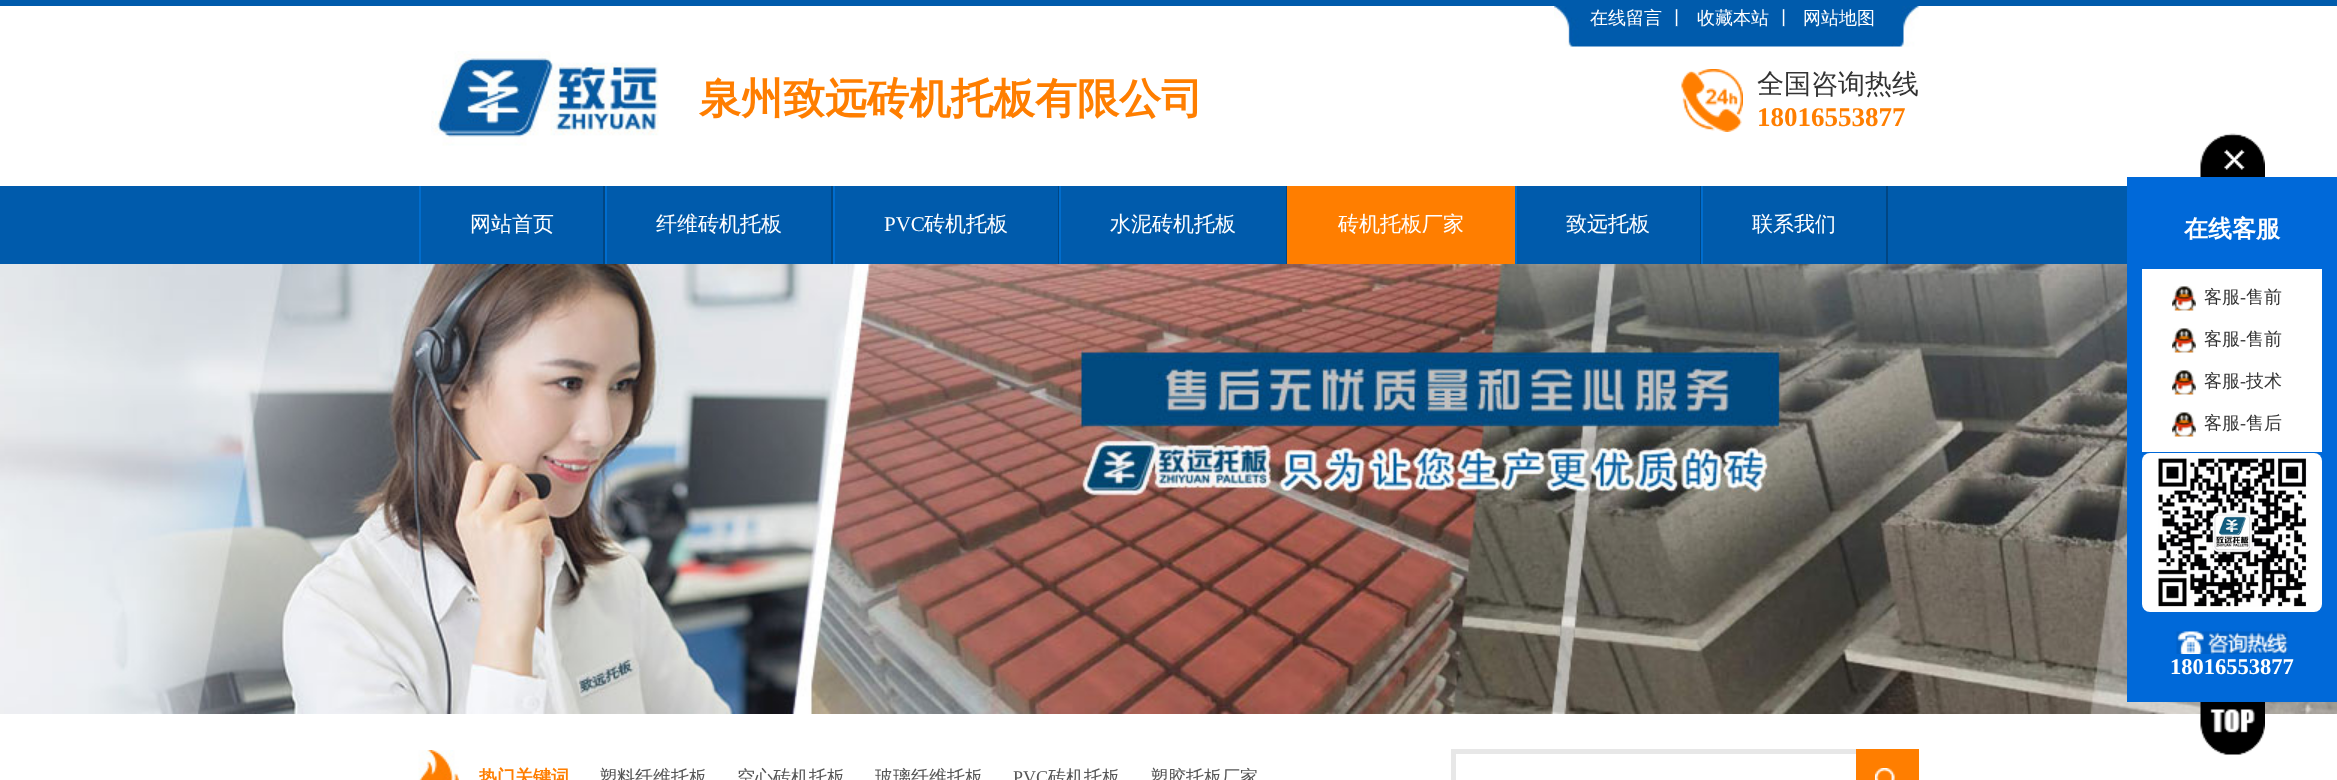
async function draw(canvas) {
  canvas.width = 2337
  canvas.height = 780
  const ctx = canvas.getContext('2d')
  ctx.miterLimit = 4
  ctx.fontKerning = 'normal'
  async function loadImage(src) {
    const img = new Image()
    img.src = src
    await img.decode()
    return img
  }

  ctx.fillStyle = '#fff'
  ctx.fillRect(0, 0, 2337, 780)
  ctx.fillStyle = '#005bac'
  ctx.fillRect(0, 0, 2337, 6)
  ctx.drawImage(await loadImage('image0.png'), 1554, 6, 365, 41)
  ctx.font = '500 18px WenQuanYi Zen Hei'
  ctx.fillStyle = '#fff'
  ctx.fillText('在线留言', 1590, 24)
  ctx.fillText('丨', 1668, 24)
  ctx.fillText('收藏本站', 1697, 24)
  ctx.fillText('丨', 1775, 24)
  ctx.fillText('网站地图', 1803, 24)
  ctx.drawImage(await loadImage('image1.png'), 431, 51, 228, 95)
  ctx.font = 'bold 42px WenQuanYi Zen Hei'
  ctx.fillStyle = '#ff7e00'
  ctx.fillText('泉州致远砖机托板有限公司', 699, 113)
  ctx.drawImage(await loadImage('image2.png'), 1681, 69, 62, 63)
  ctx.font = '500 27px WenQuanYi Zen Hei'
  ctx.fillStyle = '#333'
  ctx.fillText('全国咨询热线', 1757, 93)
  ctx.font = 'bold 27px Liberation Serif'
  ctx.fillStyle = '#ff7e00'
  ctx.fillText('18016553877', 1757, 126)
  ctx.fillStyle = '#005bac'
  ctx.fillRect(0, 186, 2127, 78)
  ctx.fillStyle = '#014683'
  ctx.fillRect(603, 186, 2, 78)
  ctx.fillStyle = '#006dce'
  ctx.fillRect(419, 186, 2, 78)
  ctx.font = '500 21px WenQuanYi Zen Hei'
  ctx.fillStyle = '#fff'
  ctx.fillText('网站首页', 470, 231)
  ctx.fillStyle = '#014683'
  ctx.fillRect(831, 186, 2, 78)
  ctx.fillStyle = '#006dce'
  ctx.fillRect(605, 186, 2, 78)
  ctx.fillStyle = '#fff'
  ctx.fillText('纤维砖机托板', 656, 231)
  ctx.fillStyle = '#014683'
  ctx.fillRect(1058, 186, 1, 78)
  ctx.fillStyle = '#006dce'
  ctx.fillRect(833, 186, 2, 78)
  ctx.font = '21px Liberation Serif'
  ctx.fillStyle = '#fff'
  ctx.fillText('PVC', 884, 231)
  ctx.font = '500 21px WenQuanYi Zen Hei'
  ctx.fillText('砖机托板', 924, 231)
  ctx.fillStyle = '#014683'
  ctx.fillRect(1286, 186, 1, 78)
  ctx.fillStyle = '#006dce'
  ctx.fillRect(1059, 186, 2, 78)
  ctx.fillStyle = '#fff'
  ctx.fillText('水泥砖机托板', 1110, 231)
  ctx.fillStyle = '#ff7e00'
  ctx.fillRect(1287, 186, 228, 78)
  ctx.fillStyle = '#fff'
  ctx.fillText('砖机托板厂家', 1338, 231)
  ctx.fillStyle = '#014683'
  ctx.fillRect(1700, 186, 1, 78)
  ctx.fillStyle = '#006dce'
  ctx.fillRect(1515, 186, 2, 78)
  ctx.fillStyle = '#fff'
  ctx.fillText('致远托板', 1566, 231)
  ctx.fillStyle = '#014683'
  ctx.fillRect(1886, 186, 2, 78)
  ctx.fillStyle = '#006dce'
  ctx.fillRect(1701, 186, 2, 78)
  ctx.fillStyle = '#fff'
  ctx.fillText('联系我们', 1752, 231)
  ctx.drawImage(await loadImage('image8.png'), 0, 264, 2337, 450)
  ctx.fillStyle = '#0069d9'
  ctx.fillRect(2127, 177, 210, 525)
  ctx.drawImage(await loadImage('image3.png'), 2200, 133, 65, 44)
  ctx.font = 'bold 24px WenQuanYi Zen Hei'
  ctx.fillStyle = '#fff'
  ctx.fillText('在线客服', 2184, 237)
  ctx.fillRect(2142, 269, 180, 183)
  ctx.drawImage(await loadImage('image4.png'), 2172, 286, 24, 25)
  ctx.font = '500 18px WenQuanYi Zen Hei'
  ctx.fillStyle = '#333'
  ctx.fillText('客服', 2204, 303)
  ctx.font = '18px Liberation Serif'
  ctx.fillText('-', 2240, 303)
  ctx.font = '500 18px WenQuanYi Zen Hei'
  ctx.fillText('售前', 2246, 303)
  ctx.drawImage(await loadImage('image4.png'), 2172, 328, 24, 25)
  ctx.fillText('客服', 2204, 345)
  ctx.font = '18px Liberation Serif'
  ctx.fillText('-', 2240, 345)
  ctx.font = '500 18px WenQuanYi Zen Hei'
  ctx.fillText('售前', 2246, 345)
  ctx.drawImage(await loadImage('image4.png'), 2172, 370, 24, 25)
  ctx.fillText('客服', 2204, 387)
  ctx.font = '18px Liberation Serif'
  ctx.fillText('-', 2240, 387)
  ctx.font = '500 18px WenQuanYi Zen Hei'
  ctx.fillText('技术', 2246, 387)
  ctx.drawImage(await loadImage('image4.png'), 2172, 412, 24, 25)
  ctx.fillText('客服', 2204, 429)
  ctx.font = '18px Liberation Serif'
  ctx.fillText('-', 2240, 429)
  ctx.font = '500 18px WenQuanYi Zen Hei'
  ctx.fillText('售后', 2246, 429)
  ctx.fillStyle = '#fff'
  ctx.beginPath()
  ctx.roundRect(2142, 453, 180, 159, 8)
  ctx.fill()
  ctx.drawImage(await loadImage('image5.png'), 2158, 458, 149, 149)
  ctx.drawImage(await loadImage('image6.png'), 2176, 631, 112, 23)
  ctx.font = 'bold 22.5px Liberation Serif'
  ctx.fillText('18016553877', 2170, 674)
  ctx.drawImage(await loadImage('image7.png'), 2200, 702, 65, 53)
  ctx.drawImage(await loadImage('image9.png'), 418, 750, 41, 30)
  ctx.font = 'bold 18px WenQuanYi Zen Hei'
  ctx.fillStyle = '#ff7e00'
  ctx.fillText('热门关键词', 479, 783)
  ctx.font = '500 18px WenQuanYi Zen Hei'
  ctx.fillStyle = '#555'
  ctx.fillText('塑料纤维托板', 599, 783)
  ctx.fillText('空心砖机托板', 737, 783)
  ctx.fillText('玻璃纤维托板', 875, 783)
  ctx.font = '18px Liberation Serif'
  ctx.fillText('PVC', 1013, 783)
  ctx.font = '500 18px WenQuanYi Zen Hei'
  ctx.fillText('砖机托板', 1048, 783)
  ctx.fillText('塑胶托板厂家', 1150, 783)
  ctx.fillStyle = '#e7e7e7'
  ctx.fillRect(1451, 749, 405, 5)
  ctx.fillRect(1451, 749, 5, 31)
  ctx.fillStyle = '#ff7e00'
  ctx.fillRect(1856, 749, 63, 31)
  ctx.drawImage(await loadImage('image10.png'), 1875, 768, 20, 12)
}

draw(document.querySelector('canvas'))
